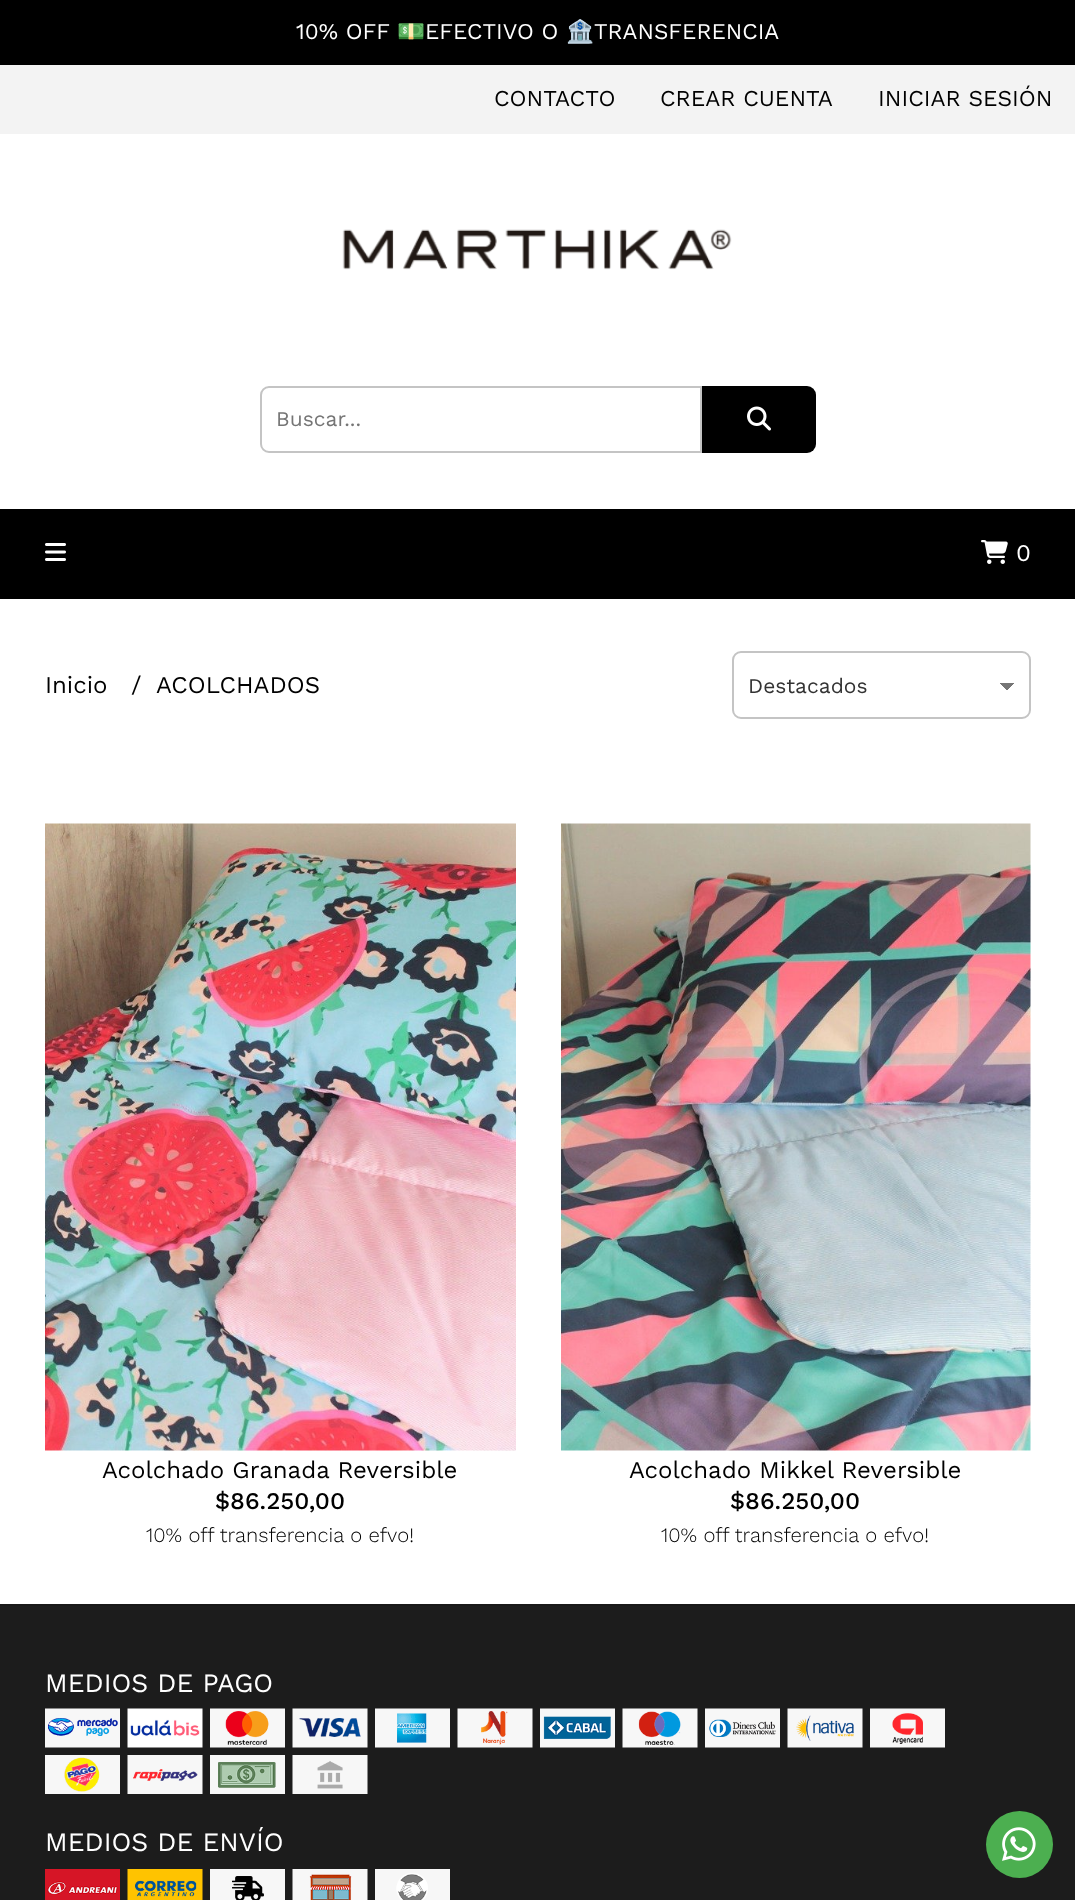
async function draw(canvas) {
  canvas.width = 1075
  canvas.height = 1900
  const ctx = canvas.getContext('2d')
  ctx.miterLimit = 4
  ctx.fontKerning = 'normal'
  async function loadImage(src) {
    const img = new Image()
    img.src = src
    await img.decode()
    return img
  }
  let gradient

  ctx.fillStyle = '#fff'
  ctx.fillRect(0, 0, 1075, 1900)
  ctx.fillStyle = '#000'
  ctx.fillRect(0, 0, 1075, 65)
  ctx.font = '22.5px Work Sans'
  ctx.fillStyle = '#fff'
  ctx.fillText('10% OFF', 296, 39)
  ctx.font = '22.5px Noto Color Emoji'
  ctx.fillText('💵', 397, 39)
  ctx.font = '22.5px Work Sans'
  ctx.fillText('EFECTIVO O', 425, 39)
  ctx.font = '22.5px Noto Color Emoji'
  ctx.fillText('🏦', 566, 39)
  ctx.font = '22.5px Work Sans'
  ctx.fillText('TRANSFERENCIA', 594, 39)
  ctx.fillStyle = '#f3f3f3'
  ctx.fillRect(0, 65, 1075, 69)
  ctx.font = '22.75px Work Sans'
  ctx.fillStyle = '#000'
  ctx.fillText('CONTACTO', 494, 106)
  ctx.fillText('CREAR CUENTA', 660, 106)
  ctx.fillText('INICIAR SESIÓN', 878, 106)
  ctx.drawImage(await loadImage('image0.png'), 342, 229, 390, 41)
  ctx.beginPath()
  ctx.roundRect(261, 387, 440, 65, [8, 0, 0, 8])
  ctx.strokeStyle = '#c4c4c4'
  ctx.lineWidth = 2
  ctx.stroke()
  ctx.font = '21px Work Sans'
  ctx.fillStyle = '#757575'
  ctx.fillText('Buscar...', 276, 426)
  ctx.fillStyle = '#000'
  ctx.beginPath()
  ctx.roundRect(702, 386, 114, 67, [0, 9, 9, 0])
  ctx.fill()
  ctx.drawImage(await loadImage('image1.png'), 747, 406, 24, 25)
  ctx.fillRect(0, 509, 1075, 90)
  ctx.drawImage(await loadImage('image2.png'), 45, 543, 21, 18)
  ctx.drawImage(await loadImage('image3.png'), 981, 540, 27, 24)
  ctx.font = '24px Work Sans'
  ctx.fillStyle = '#fff'
  ctx.fillText('0', 1016, 561)
  ctx.fillStyle = '#000'
  ctx.fillText('Inicio', 45, 693)
  ctx.fillText('/', 131, 693)
  ctx.fillText('ACOLCHADOS', 156, 693)
  gradient = ctx.createLinearGradient(1007, 683, 1014, 690)
  gradient.addColorStop(0.5, '#757575')
  gradient.addColorStop(0.5, '#fff')
  ctx.fillStyle = gradient
  ctx.fillRect(1007, 683, 7, 7)
  gradient = ctx.createLinearGradient(999, 690, 1007, 683)
  gradient.addColorStop(0.5, '#fff')
  gradient.addColorStop(0.5, '#757575')
  ctx.fillStyle = gradient
  ctx.fillRect(999, 683, 8, 7)
  ctx.beginPath()
  ctx.roundRect(733, 652, 297, 66, 8)
  ctx.stroke()
  ctx.font = '21px Work Sans'
  ctx.fillStyle = '#333'
  ctx.fillText('Destacados', 748, 693)
  ctx.drawImage(await loadImage('image4.png'), 45, 823, 471, 628)
  ctx.font = '24px Work Sans'
  ctx.fillStyle = '#000'
  ctx.fillText('Acolchado Granada Reversible', 102, 1478)
  ctx.font = '500 24px Work Sans'
  ctx.fillText('$86.250,00', 215, 1509)
  ctx.font = '300 20.4px Work Sans'
  ctx.fillText('10% off transferencia o efvo!', 146, 1542)
  ctx.drawImage(await loadImage('image5.png'), 561, 823, 470, 628)
  ctx.font = '24px Work Sans'
  ctx.fillText('Acolchado Mikkel Reversible', 629, 1478)
  ctx.font = '500 24px Work Sans'
  ctx.fillText('$86.250,00', 730, 1509)
  ctx.font = '300 20.4px Work Sans'
  ctx.fillText('10% off transferencia o efvo!', 661, 1542)
  ctx.fillStyle = '#1c1c1c'
  ctx.fillRect(0, 1606, 1075, 294)
  ctx.fillStyle = '#191919'
  ctx.fillRect(0, 1604, 1075, 2)
  ctx.font = '26.5px Work Sans'
  ctx.fillStyle = '#fff'
  ctx.fillText('MEDIOS DE PAGO', 45, 1692)
  ctx.drawImage(await loadImage('image6.png'), 45, 1708, 75, 40)
  ctx.drawImage(await loadImage('image7.png'), 127, 1708, 76, 40)
  ctx.drawImage(await loadImage('image8.png'), 210, 1708, 75, 40)
  ctx.drawImage(await loadImage('image9.png'), 292, 1708, 76, 40)
  ctx.drawImage(await loadImage('image10.png'), 375, 1708, 75, 40)
  ctx.drawImage(await loadImage('image11.png'), 457, 1708, 76, 40)
  ctx.drawImage(await loadImage('image12.png'), 540, 1708, 75, 40)
  ctx.drawImage(await loadImage('image13.png'), 622, 1708, 76, 40)
  ctx.drawImage(await loadImage('image14.png'), 705, 1708, 75, 40)
  ctx.drawImage(await loadImage('image15.png'), 787, 1708, 76, 40)
  ctx.drawImage(await loadImage('image16.png'), 870, 1708, 75, 40)
  ctx.drawImage(await loadImage('image17.png'), 45, 1755, 75, 39)
  ctx.drawImage(await loadImage('image18.png'), 127, 1755, 76, 39)
  ctx.drawImage(await loadImage('image19.png'), 210, 1755, 75, 39)
  ctx.drawImage(await loadImage('image20.png'), 292, 1755, 76, 39)
  ctx.fillText('MEDIOS DE ENVÍO', 45, 1851)
  ctx.drawImage(await loadImage('image21.png'), 45, 1869, 75, 31)
  ctx.drawImage(await loadImage('image22.png'), 127, 1869, 76, 31)
  ctx.drawImage(await loadImage('image23.png'), 210, 1869, 75, 31)
  ctx.drawImage(await loadImage('image24.png'), 292, 1869, 76, 31)
  ctx.drawImage(await loadImage('image25.png'), 375, 1869, 75, 31)
  ctx.fillStyle = '#4caf50'
  ctx.beginPath()
  ctx.arc(1019.5, 1844.5, 33.5, 0, 2 * Math.PI)
  ctx.fill()
  ctx.drawImage(await loadImage('image26.png'), 1002, 1827, 34, 34)
}

draw(document.querySelector('canvas'))
